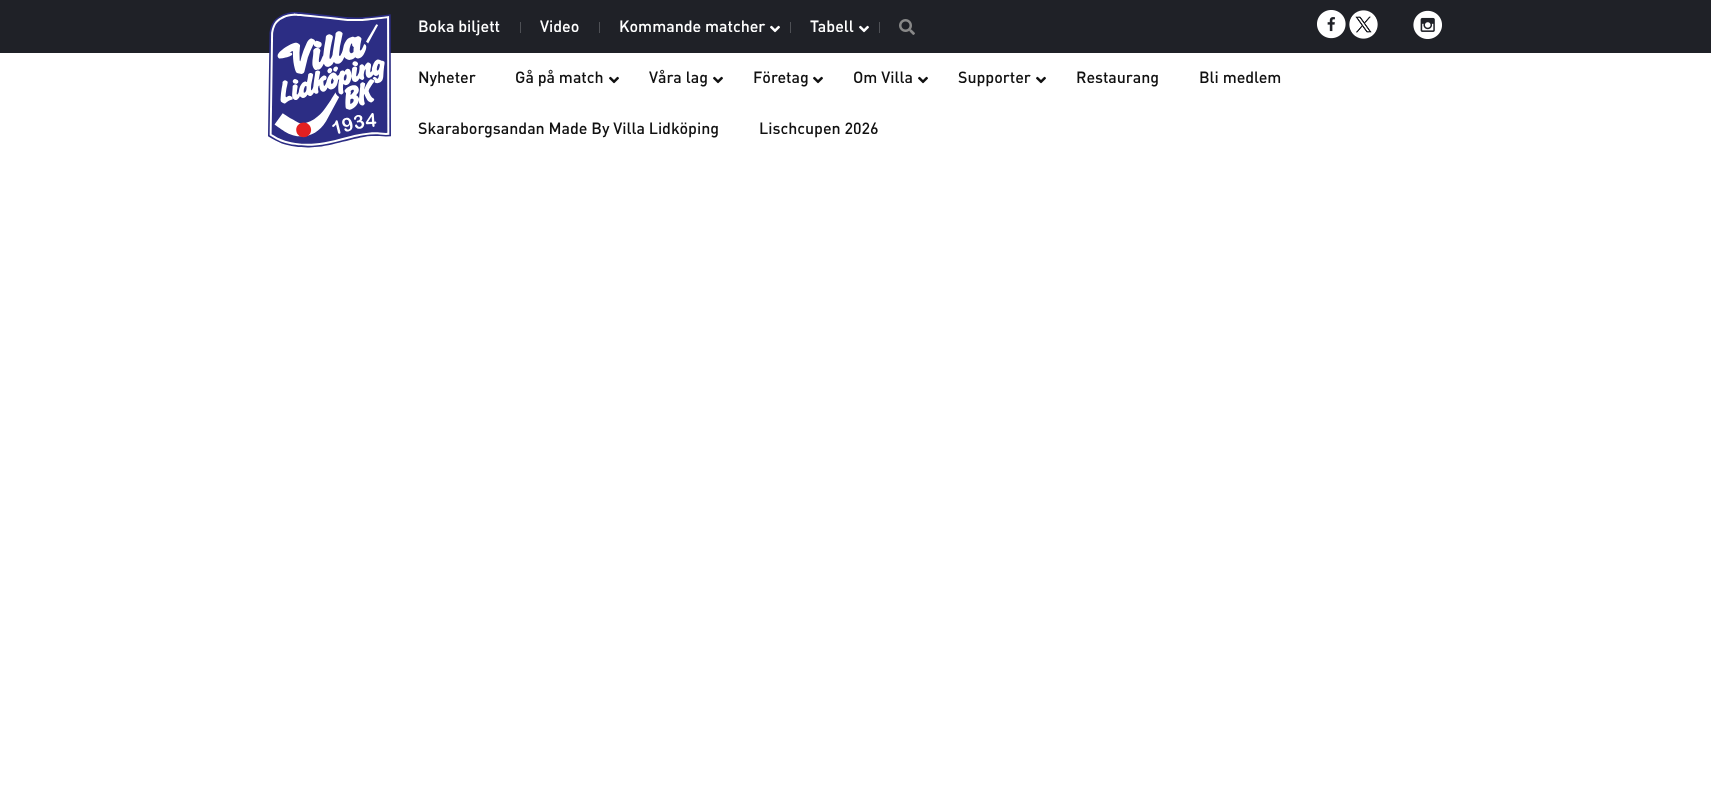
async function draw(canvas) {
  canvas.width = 1711
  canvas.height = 804
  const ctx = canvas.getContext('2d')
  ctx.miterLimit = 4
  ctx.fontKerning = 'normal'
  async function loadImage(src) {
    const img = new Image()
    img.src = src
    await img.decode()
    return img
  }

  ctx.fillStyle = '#fff'
  ctx.fillRect(0, 0, 1711, 804)
  ctx.fillStyle = '#1f2127'
  ctx.fillRect(0, 0, 1711, 53)
  ctx.drawImage(await loadImage('image0.png'), 268, 12, 123, 136)
  ctx.drawImage(await loadImage('image1.png'), 1317, 10, 29, 29)
  ctx.drawImage(await loadImage('image2.png'), 1349, 10, 29, 29)
  ctx.drawImage(await loadImage('image3.png'), 1413, 10, 29, 29)
  ctx.font = '500 16px DIN'
  ctx.fillStyle = '#fff'
  ctx.fillText('Boka biljett', 418, 32)
  ctx.fillStyle = '#4e5055'
  ctx.fillRect(520, 22, 1, 11)
  ctx.fillStyle = '#fff'
  ctx.fillText('Video', 540, 32)
  ctx.fillStyle = '#4e5055'
  ctx.fillRect(599, 22, 1, 11)
  ctx.fillStyle = '#fff'
  ctx.fillText('Kommande matcher', 619, 32)
  ctx.drawImage(await loadImage('image4.png'), 770, 25, 10, 8)
  ctx.fillStyle = '#4e5055'
  ctx.fillRect(790, 22, 1, 11)
  ctx.fillStyle = '#fff'
  ctx.fillText('Tabell', 810, 32)
  ctx.drawImage(await loadImage('image4.png'), 859, 25, 10, 8)
  ctx.fillStyle = '#4e5055'
  ctx.fillRect(879, 22, 1, 11)
  ctx.drawImage(await loadImage('image5.png'), 899, 19, 16, 16)
  ctx.fillStyle = '#111'
  ctx.fillText('Nyheter', 418, 83)
  ctx.fillText('Gå på match', 515, 83)
  ctx.drawImage(await loadImage('image6.png'), 609, 76, 10, 8)
  ctx.fillText('Våra lag', 649, 83)
  ctx.drawImage(await loadImage('image6.png'), 713, 76, 10, 8)
  ctx.fillText('Företag', 753, 83)
  ctx.drawImage(await loadImage('image6.png'), 813, 76, 10, 8)
  ctx.fillText('Om Villa', 853, 83)
  ctx.drawImage(await loadImage('image6.png'), 918, 76, 10, 8)
  ctx.fillText('Supporter', 958, 83)
  ctx.drawImage(await loadImage('image6.png'), 1036, 76, 10, 8)
  ctx.fillText('Restaurang', 1076, 83)
  ctx.fillText('Bli medlem', 1199, 83)
  ctx.fillText('Skaraborgsandan Made By Villa Lidköping', 418, 134)
  ctx.fillText('Lischcupen 2026', 759, 134)
}

draw(document.querySelector('canvas'))
